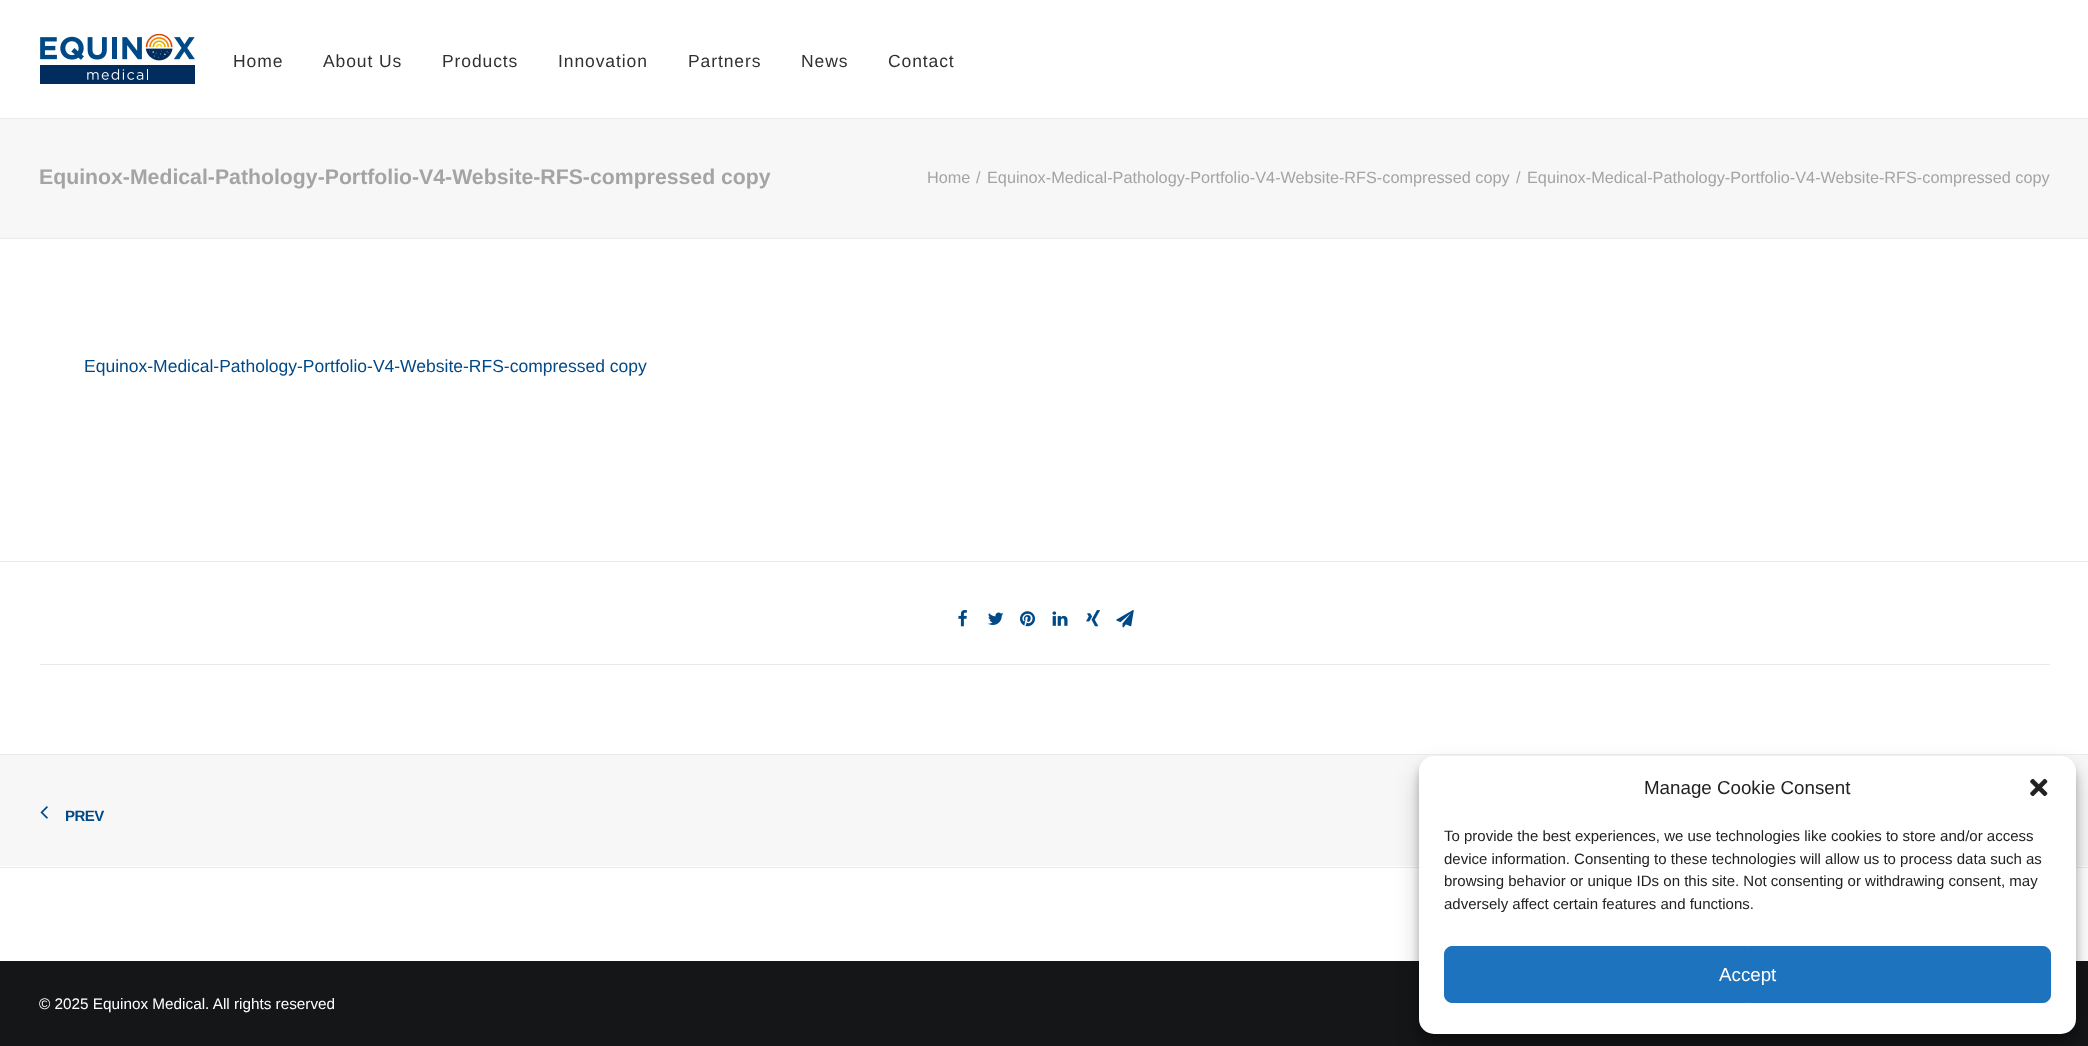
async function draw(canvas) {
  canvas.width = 2088
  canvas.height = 1046
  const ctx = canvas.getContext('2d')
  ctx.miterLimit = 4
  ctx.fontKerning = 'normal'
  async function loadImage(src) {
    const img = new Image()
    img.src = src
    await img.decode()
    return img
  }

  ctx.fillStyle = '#fff'
  ctx.fillRect(0, 0, 2088, 1046)
  ctx.drawImage(await loadImage('image0.png'), 40, 34, 155, 50)
  ctx.letterSpacing = '0.9px'
  ctx.font = '17.5px Liberation Sans'
  ctx.fillStyle = '#303133'
  ctx.fillText('Home', 233, 67)
  ctx.fillText('About Us', 323, 67)
  ctx.fillText('Products', 442, 67)
  ctx.fillText('Innovation', 558, 67)
  ctx.fillText('Partners', 688, 67)
  ctx.fillText('News', 801, 67)
  ctx.fillText('Contact', 888, 67)
  ctx.fillStyle = '#f7f7f7'
  ctx.fillRect(0, 119, 2088, 119)
  ctx.fillStyle = '#eaeaea'
  ctx.fillRect(0, 118, 2088, 1)
  ctx.fillRect(0, 238, 2088, 1)
  ctx.letterSpacing = '0px'
  ctx.font = 'bold 21.25px Liberation Sans'
  ctx.fillStyle = '#a4a4a4'
  ctx.fillText('Equinox-Medical-Pathology-Portfolio-V4-Website-RFS-compressed copy', 39, 184)
  ctx.font = '16.25px Liberation Sans'
  ctx.fillText('Home', 927, 183)
  ctx.fillText('/', 976, 183)
  ctx.fillText('Equinox-Medical-Pathology-Portfolio-V4-Website-RFS-compressed copy', 987, 183)
  ctx.fillText('/', 1516, 183)
  ctx.fillText('Equinox-Medical-Pathology-Portfolio-V4-Website-RFS-compressed copy', 1527, 183)
  ctx.font = '17.5px Liberation Sans'
  ctx.fillStyle = '#004987'
  ctx.fillText('Equinox-Medical-Pathology-Portfolio-V4-Website-RFS-compressed copy', 84, 372)
  ctx.fillStyle = '#eaeaea'
  ctx.fillRect(0, 561, 2088, 1)
  ctx.fillRect(40, 664, 2010, 1)
  ctx.drawImage(await loadImage('image1.png'), 958, 610, 9, 17)
  ctx.drawImage(await loadImage('image2.png'), 988, 612, 16, 13)
  ctx.drawImage(await loadImage('image3.png'), 1020, 611, 15, 16)
  ctx.drawImage(await loadImage('image4.png'), 1052, 611, 16, 15)
  ctx.drawImage(await loadImage('image5.png'), 1086, 610, 14, 17)
  ctx.drawImage(await loadImage('image6.png'), 1116, 610, 18, 18)
  ctx.fillStyle = '#f7f7f7'
  ctx.fillRect(0, 755, 2088, 111)
  ctx.strokeStyle = '#eaeaea'
  ctx.strokeRect(-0.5, 754.5, 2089, 113)
  ctx.drawImage(await loadImage('image7.png'), 40, 806, 8, 13)
  ctx.letterSpacing = '-0.5px'
  ctx.font = 'bold 15px Liberation Sans'
  ctx.fillStyle = '#004987'
  ctx.fillText('PREV', 65, 821)
  ctx.fillStyle = '#141618'
  ctx.fillRect(0, 961, 2088, 85)
  ctx.letterSpacing = '0px'
  ctx.font = '15.3px Liberation Sans'
  ctx.fillStyle = '#fff'
  ctx.fillText('© 2025 Equinox Medical. All rights reserved', 39, 1009)
  ctx.fillStyle = '#0000003b'
  ctx.filter = 'blur(4px)'
  ctx.beginPath()
  ctx.roundRect(1419, 764, 657, 277, 15)
  ctx.fill()
  ctx.filter = 'none'
  ctx.fillStyle = '#00000030'
  ctx.filter = 'blur(12.5px)'
  ctx.beginPath()
  ctx.roundRect(1419, 769, 657, 277, 15)
  ctx.fill()
  ctx.filter = 'none'
  ctx.fillStyle = '#fff'
  ctx.beginPath()
  ctx.roundRect(1419, 756, 657, 278, 15)
  ctx.fill()
  ctx.font = '18.75px Liberation Sans'
  ctx.fillStyle = '#222'
  ctx.fillText('Manage Cookie Consent', 1644, 794)
  ctx.drawImage(await loadImage('image8.png'), 2030, 778, 18, 19)
  ctx.font = '15px Liberation Sans'
  ctx.fillText('To provide the best experiences, we use technologies like cookies to store and/or access', 1444, 841)
  ctx.fillText('device information. Consenting to these technologies will allow us to process data such as', 1444, 864)
  ctx.fillText('browsing behavior or unique IDs on this site. Not consenting or withdrawing consent, may', 1444, 886)
  ctx.fillText('adversely affect certain features and functions.', 1444, 909)
  ctx.fillStyle = '#1e73be'
  ctx.beginPath()
  ctx.roundRect(1444.5, 946.5, 606, 56, 7.5)
  ctx.fill()
  ctx.strokeStyle = '#1e73be'
  ctx.stroke()
  ctx.font = '18.75px Liberation Sans'
  ctx.fillStyle = '#fff'
  ctx.fillText('Accept', 1719, 981)
}

draw(document.querySelector('canvas'))
